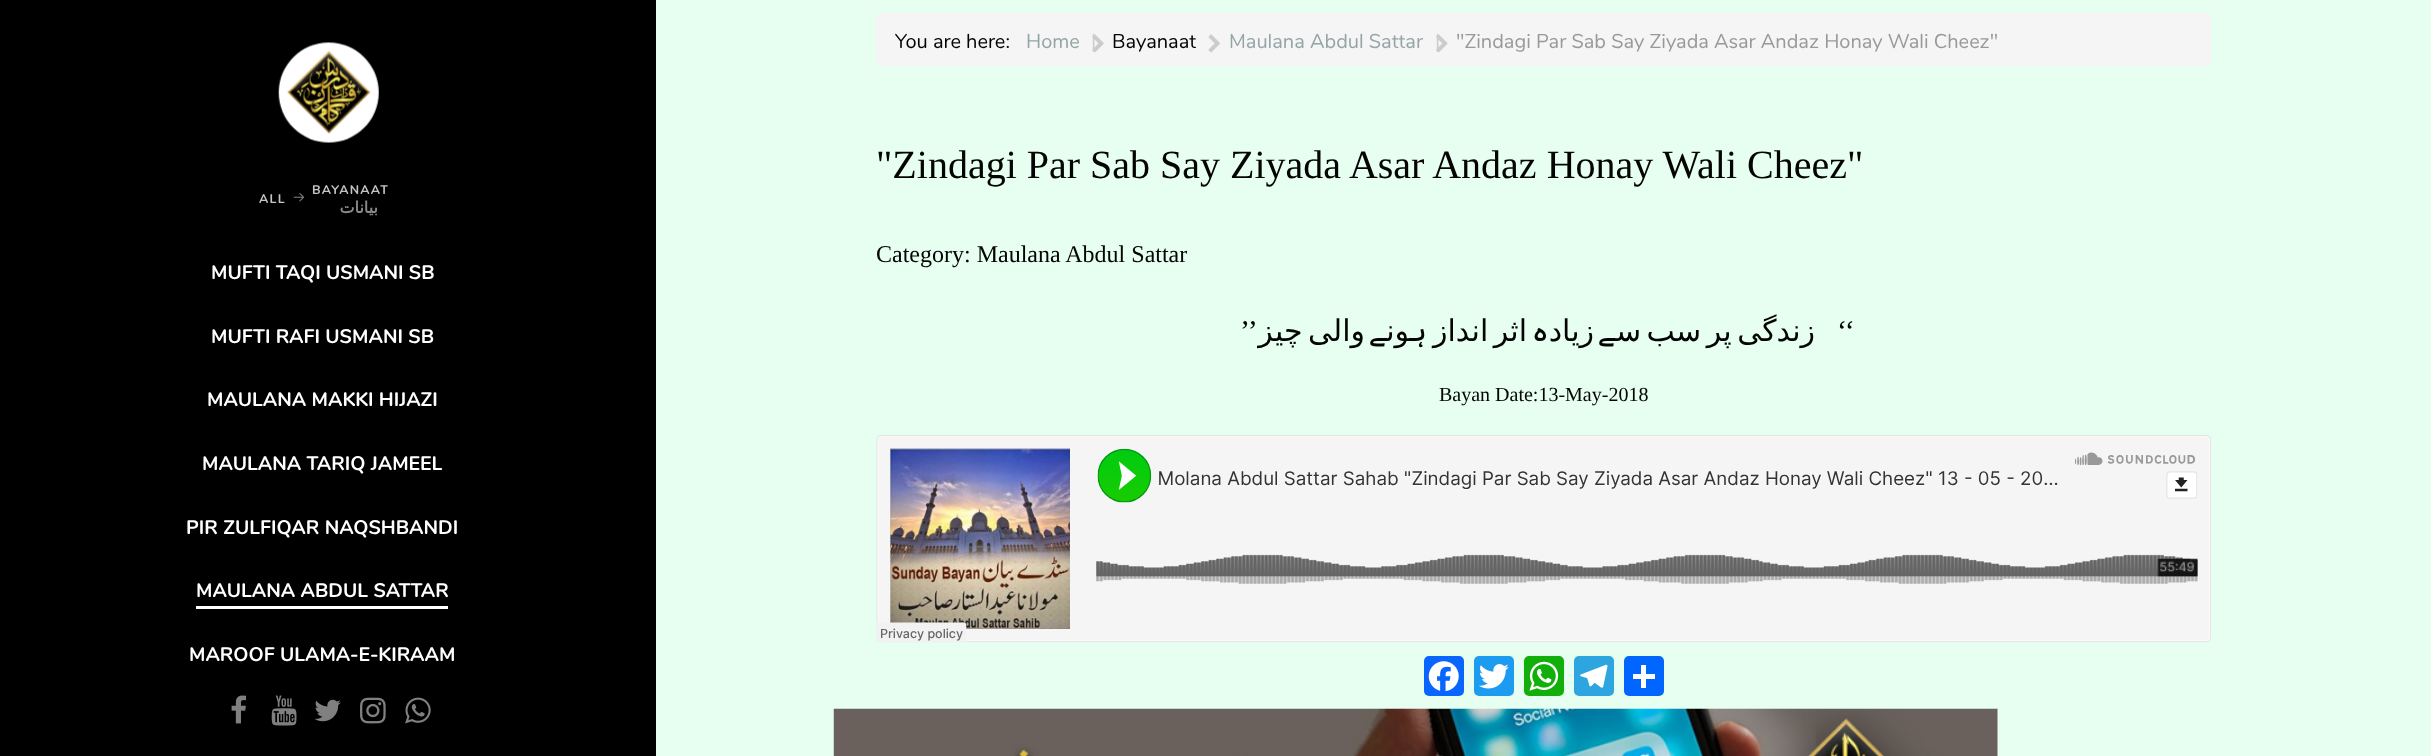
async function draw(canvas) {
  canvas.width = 2431
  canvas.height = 756
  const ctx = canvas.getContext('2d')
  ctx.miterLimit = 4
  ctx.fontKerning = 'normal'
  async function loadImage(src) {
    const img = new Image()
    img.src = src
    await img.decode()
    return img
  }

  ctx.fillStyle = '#e6fff1'
  ctx.fillRect(0, 0, 2431, 756)
  ctx.fillStyle = '#000'
  ctx.fillRect(0, 0, 656, 756)
  ctx.drawImage(await loadImage('image0.png'), 278, 42, 101, 101)
  ctx.letterSpacing = '1.25px'
  ctx.font = 'bold 12.5px Nunito'
  ctx.fillStyle = '#c7c5c3'
  ctx.fillText('ALL', 259, 203)
  ctx.drawImage(await loadImage('image1.png'), 293, 193, 11, 9)
  ctx.fillText('BAYANAAT', 312, 194)
  ctx.direction = 'rtl'
  ctx.font = 'bold 16px DejaVu Sans'
  ctx.fillStyle = '#8b8a89'
  ctx.fillText('بیانات', 378, 213)
  ctx.letterSpacing = '0px'
  ctx.direction = 'ltr'
  ctx.font = 'bold 19.5px Nunito'
  ctx.fillStyle = '#fff'
  ctx.fillText('MUFTI TAQI USMANI SB', 211, 279)
  ctx.fillText('MUFTI RAFI USMANI SB', 211, 343)
  ctx.fillText('MAULANA MAKKI HIJAZI', 207, 406)
  ctx.fillText('MAULANA TARIQ JAMEEL', 202, 470)
  ctx.fillText('PIR ZULFIQAR NAQSHBANDI', 186, 534)
  ctx.fillRect(196, 606, 252, 3)
  ctx.fillText('MAULANA ABDUL SATTAR', 196, 597)
  ctx.fillText('MAROOF ULAMA-E-KIRAAM', 189, 661)
  ctx.drawImage(await loadImage('image2.png'), 231, 695, 16, 29)
  ctx.drawImage(await loadImage('image3.png'), 271, 695, 26, 31)
  ctx.drawImage(await loadImage('image4.png'), 314, 699, 27, 23)
  ctx.drawImage(await loadImage('image5.png'), 360, 697, 26, 27)
  ctx.drawImage(await loadImage('image6.png'), 405, 697, 26, 27)
  ctx.fillStyle = '#f5f5f5'
  ctx.beginPath()
  ctx.roundRect(876, 13, 1335, 53, 5)
  ctx.fill()
  ctx.font = '20px Nunito'
  ctx.fillStyle = '#030303'
  ctx.fillText('You are here:', 895, 48)
  ctx.fillStyle = '#95a5a6'
  ctx.fillText('Home', 1026, 48)
  ctx.fillStyle = '#ccc'
  ctx.fillText('|', 1091, 48)
  ctx.drawImage(await loadImage('image7.png'), 1092, 34, 12, 19)
  ctx.fillStyle = '#030303'
  ctx.fillText('Bayanaat', 1112, 48)
  ctx.drawImage(await loadImage('image8.png'), 1208, 34, 12, 19)
  ctx.fillStyle = '#95a5a6'
  ctx.fillText('Maulana Abdul Sattar', 1229, 48)
  ctx.fillStyle = '#ccc'
  ctx.fillText('|', 1435, 48)
  ctx.drawImage(await loadImage('image9.png'), 1436, 34, 12, 19)
  ctx.fillStyle = '#999'
  ctx.fillText('"Zindagi Par Sab Say Ziyada Asar Andaz Honay Wali Cheez"', 1456, 48)
  ctx.font = '40px Liberation Serif'
  ctx.fillStyle = '#030303'
  ctx.fillText('"Zindagi Par Sab Say Ziyada Asar Andaz Honay Wali Cheez"', 876, 178)
  ctx.font = '24px Liberation Serif'
  ctx.fillText('Category: Maulana Abdul Sattar', 876, 262)
  ctx.font = '30px Liberation Serif'
  ctx.fillText('’’', 1240, 341)
  ctx.wordSpacing = '-4px'
  ctx.direction = 'rtl'
  ctx.font = '30px DejaVu Sans'
  ctx.fillText('والی چیز', 1365, 341)
  ctx.fillText('اثر انداز', 1527, 341)
  ctx.wordSpacing = '0px'
  ctx.fillText('زیاد', 1594, 341)
  ctx.font = '30px Cascadia Code'
  ctx.fillText('‍ے', 1615, 341)
  ctx.wordSpacing = '-4px'
  ctx.font = '30px DejaVu Sans'
  ctx.fillText('زندگی پر سب س‍', 1815, 341)
  ctx.wordSpacing = '0px'
  ctx.direction = 'ltr'
  ctx.font = '30px Liberation Serif'
  ctx.fillText('‘‘', 1837, 341)
  ctx.direction = 'rtl'
  ctx.font = '30px Cascadia Code'
  ctx.fillText('‍ے', 1386, 341)
  ctx.font = '30px DejaVu Sans'
  ctx.fillText('‍ون‍', 1410, 341)
  ctx.font = '30px Cascadia Code'
  ctx.fillText('ہ‍', 1427, 341)
  ctx.fillText('ہ', 1549, 341)
  ctx.direction = 'ltr'
  ctx.font = '20px Liberation Serif'
  ctx.fillText('Bayan Date:13-May-2018', 1439, 401)
  ctx.drawImage(await loadImage('image10.png'), 876, 435, 1335, 208)
  ctx.fillStyle = '#0866ff'
  ctx.beginPath()
  ctx.roundRect(1424, 656, 40, 40, 5)
  ctx.fill()
  ctx.drawImage(await loadImage('image11.png'), 1428, 661, 31, 31)
  ctx.fillStyle = '#1d9bf0'
  ctx.beginPath()
  ctx.roundRect(1474, 656, 40, 40, 5)
  ctx.fill()
  ctx.drawImage(await loadImage('image12.png'), 1479, 664, 30, 25)
  ctx.fillStyle = '#12af0a'
  ctx.beginPath()
  ctx.roundRect(1524, 656, 40, 40, 5)
  ctx.fill()
  ctx.drawImage(await loadImage('image13.png'), 1529, 661, 30, 30)
  ctx.fillStyle = '#2ca5e0'
  ctx.beginPath()
  ctx.roundRect(1574, 656, 40, 40, 5)
  ctx.fill()
  ctx.drawImage(await loadImage('image14.png'), 1580, 664, 28, 24)
  ctx.fillStyle = '#0166ff'
  ctx.beginPath()
  ctx.roundRect(1624, 656, 40, 40, 5)
  ctx.fill()
  ctx.fillStyle = '#fff'
  ctx.fillRect(1641, 665, 5, 23)
  ctx.fillRect(1633, 674, 22, 5)
  ctx.drawImage(await loadImage('image15.png'), 833, 708, 1165, 48)
}

draw(document.querySelector('canvas'))
